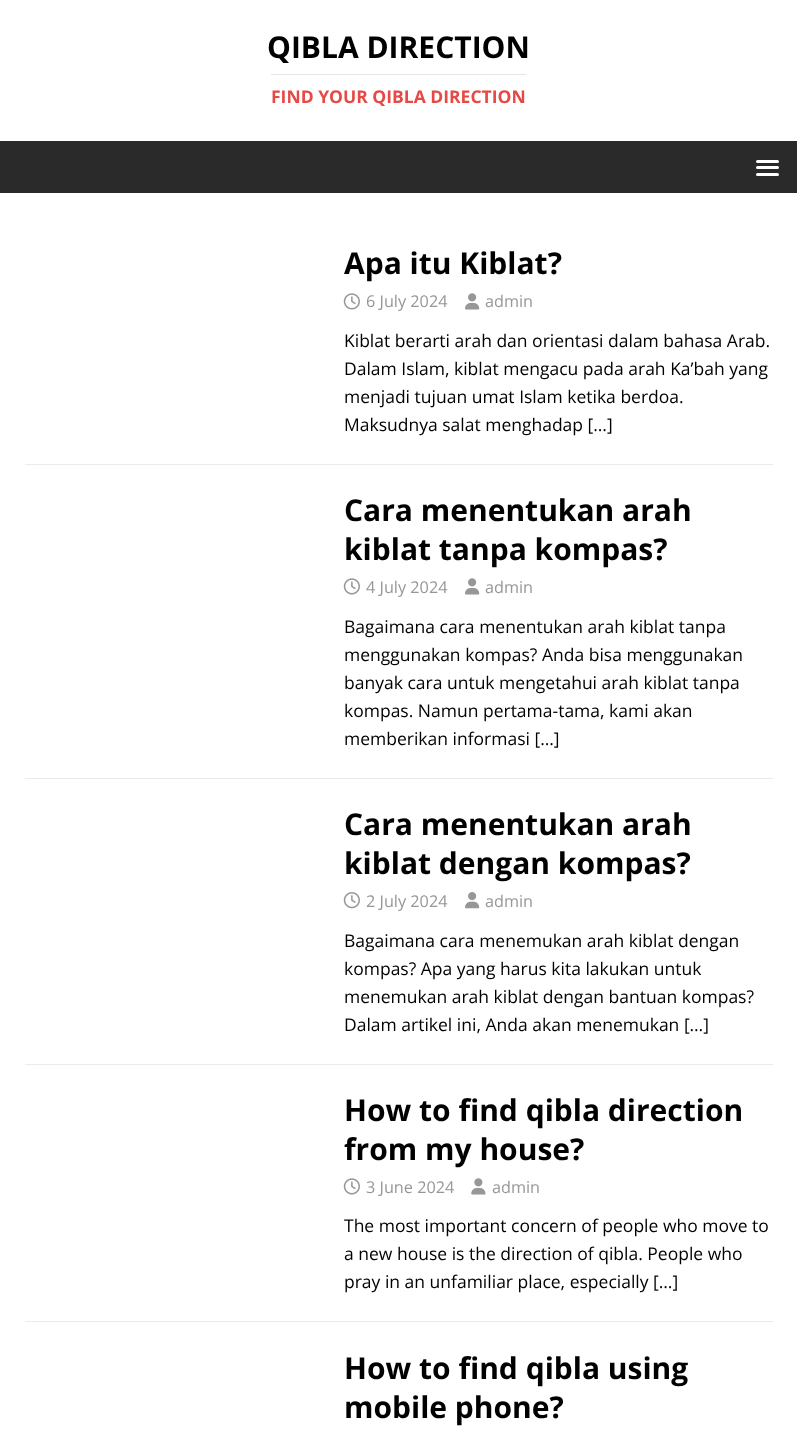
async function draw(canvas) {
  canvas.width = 797
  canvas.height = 1435
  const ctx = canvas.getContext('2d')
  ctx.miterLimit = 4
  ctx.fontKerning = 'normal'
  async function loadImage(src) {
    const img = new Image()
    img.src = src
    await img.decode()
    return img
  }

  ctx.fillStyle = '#fff'
  ctx.fillRect(0, 0, 797, 1435)
  ctx.font = 'bold 30px Open Sans'
  ctx.fillStyle = '#000'
  ctx.fillText('QIBLA DIRECTION', 267, 58)
  ctx.fillStyle = '#e5e5e5'
  ctx.fillRect(271, 74, 255, 1)
  ctx.font = 'bold 17.5px Open Sans'
  ctx.fillStyle = '#e64946'
  ctx.fillText('FIND YOUR QIBLA DIRECTION', 271, 103)
  ctx.fillStyle = '#2a2a2a'
  ctx.fillRect(0, 141, 797, 52)
  ctx.fillStyle = '#fff'
  ctx.beginPath()
  ctx.roundRect(756, 160, 23, 3, 1.5)
  ctx.fill()
  ctx.beginPath()
  ctx.roundRect(756, 166, 23, 3, 1.5)
  ctx.fill()
  ctx.beginPath()
  ctx.roundRect(756, 173, 23, 3, 1.5)
  ctx.fill()
  ctx.fillStyle = '#ebebeb'
  ctx.fillRect(25, 464, 748, 1)
  ctx.font = 'bold 30px Open Sans'
  ctx.fillStyle = '#000'
  ctx.fillText('Apa itu Kiblat?', 344, 274)
  ctx.drawImage(await loadImage('image0.png'), 343, 293, 17, 17)
  ctx.font = '16.25px Open Sans'
  ctx.fillStyle = '#979797'
  ctx.fillText('6 July 2024', 366, 307)
  ctx.drawImage(await loadImage('image1.png'), 465, 293, 15, 17)
  ctx.fillText('admin', 485, 307)
  ctx.font = '17.5px Open Sans'
  ctx.fillStyle = '#000'
  ctx.fillText('Kiblat berarti arah dan orientasi dalam bahasa Arab.', 344, 347)
  ctx.fillText('Dalam Islam, kiblat mengacu pada arah Ka’bah yang', 344, 375)
  ctx.fillText('menjadi tujuan umat Islam ketika berdoa.', 344, 403)
  ctx.fillText('Maksudnya salat menghadap […]', 344, 431)
  ctx.fillStyle = '#ebebeb'
  ctx.fillRect(25, 778, 748, 1)
  ctx.font = 'bold 30px Open Sans'
  ctx.fillStyle = '#000'
  ctx.fillText('Cara menentukan arah', 344, 521)
  ctx.fillText('kiblat tanpa kompas?', 344, 560)
  ctx.drawImage(await loadImage('image0.png'), 343, 578, 17, 17)
  ctx.font = '16.25px Open Sans'
  ctx.fillStyle = '#979797'
  ctx.fillText('4 July 2024', 366, 593)
  ctx.drawImage(await loadImage('image1.png'), 465, 578, 15, 17)
  ctx.fillText('admin', 485, 593)
  ctx.font = '17.5px Open Sans'
  ctx.fillStyle = '#000'
  ctx.fillText('Bagaimana cara menentukan arah kiblat tanpa', 344, 633)
  ctx.fillText('menggunakan kompas? Anda bisa menggunakan', 344, 661)
  ctx.fillText('banyak cara untuk mengetahui arah kiblat tanpa', 344, 689)
  ctx.fillText('kompas. Namun pertama-tama, kami akan', 344, 717)
  ctx.fillText('memberikan informasi […]', 344, 745)
  ctx.fillStyle = '#ebebeb'
  ctx.fillRect(25, 1064, 748, 1)
  ctx.font = 'bold 30px Open Sans'
  ctx.fillStyle = '#000'
  ctx.fillText('Cara menentukan arah', 344, 835)
  ctx.fillText('kiblat dengan kompas?', 344, 874)
  ctx.drawImage(await loadImage('image2.png'), 343, 892, 17, 17)
  ctx.font = '16.25px Open Sans'
  ctx.fillStyle = '#979797'
  ctx.fillText('2 July 2024', 366, 907)
  ctx.drawImage(await loadImage('image3.png'), 465, 892, 15, 17)
  ctx.fillText('admin', 485, 907)
  ctx.font = '17.5px Open Sans'
  ctx.fillStyle = '#000'
  ctx.fillText('Bagaimana cara menemukan arah kiblat dengan', 344, 947)
  ctx.fillText('kompas? Apa yang harus kita lakukan untuk', 344, 975)
  ctx.fillText('menemukan arah kiblat dengan bantuan kompas?', 344, 1003)
  ctx.fillText('Dalam artikel ini, Anda akan menemukan […]', 344, 1031)
  ctx.fillStyle = '#ebebeb'
  ctx.fillRect(25, 1321, 748, 1)
  ctx.font = 'bold 30px Open Sans'
  ctx.fillStyle = '#000'
  ctx.fillText('How to find qibla direction', 344, 1121)
  ctx.fillText('from my house?', 344, 1160)
  ctx.drawImage(await loadImage('image0.png'), 343, 1178, 17, 17)
  ctx.font = '16.25px Open Sans'
  ctx.fillStyle = '#979797'
  ctx.fillText('3 June 2024', 366, 1193)
  ctx.drawImage(await loadImage('image4.png'), 471, 1178, 15, 17)
  ctx.fillText('admin', 492, 1193)
  ctx.font = '17.5px Open Sans'
  ctx.fillStyle = '#000'
  ctx.fillText('The most important concern of people who move to', 344, 1232)
  ctx.fillText('a new house is the direction of qibla. People who', 344, 1260)
  ctx.fillText('pray in an unfamiliar place, especially […]', 344, 1288)
  ctx.font = 'bold 30px Open Sans'
  ctx.fillText('How to find qibla using', 344, 1379)
  ctx.fillText('mobile phone?', 344, 1418)
}

draw(document.querySelector('canvas'))
